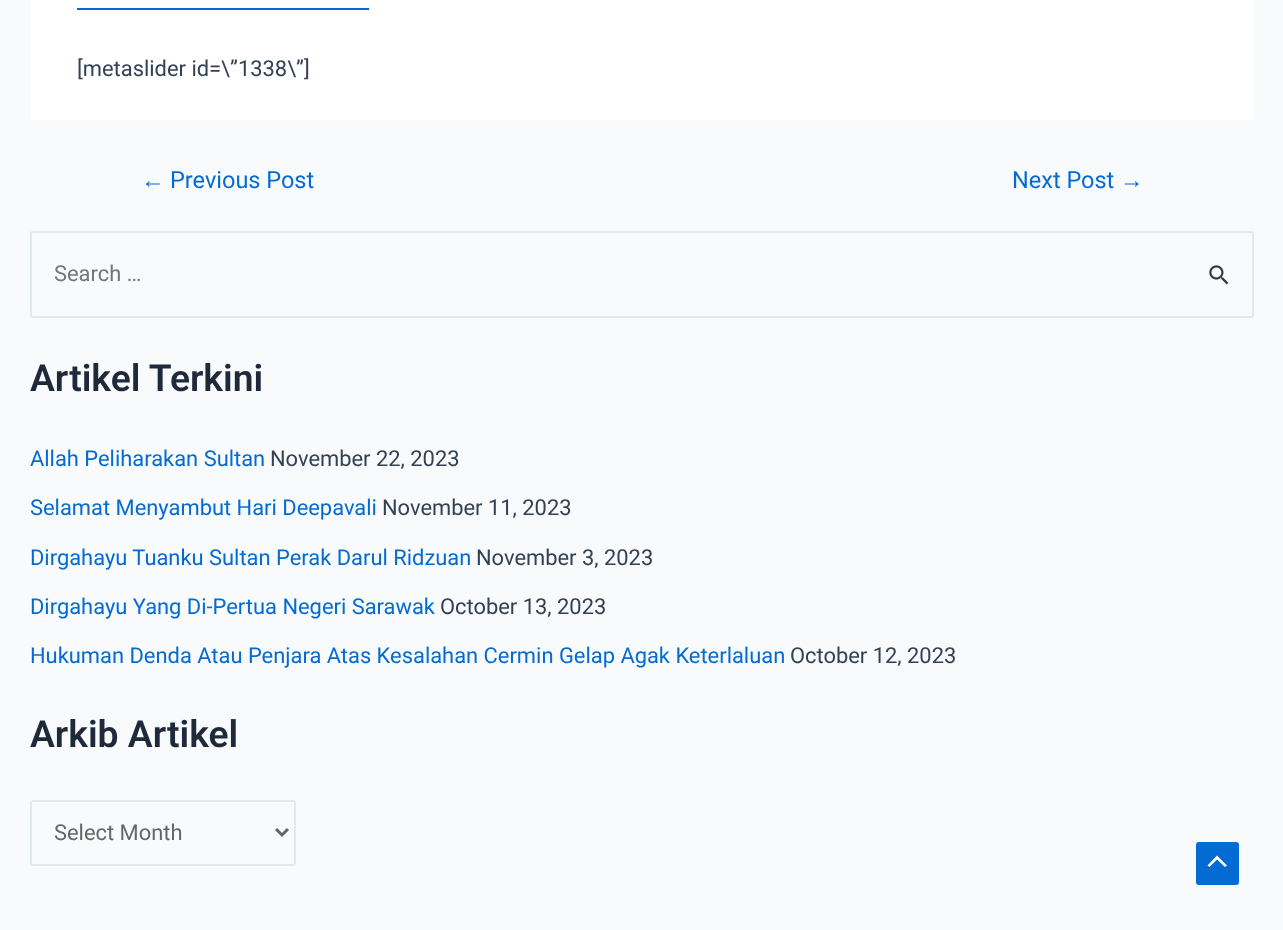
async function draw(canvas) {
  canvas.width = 1283
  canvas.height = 930
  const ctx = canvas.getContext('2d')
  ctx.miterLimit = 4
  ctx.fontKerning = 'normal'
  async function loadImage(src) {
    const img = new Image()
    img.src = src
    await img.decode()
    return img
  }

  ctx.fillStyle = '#f9fafb'
  ctx.fillRect(0, 0, 1283, 930)
  ctx.fillStyle = '#fff'
  ctx.fillRect(30, 0, 1224, 120)
  ctx.fillStyle = '#046bd2'
  ctx.fillRect(77, 8, 292, 2)
  ctx.font = '21.9px Roboto'
  ctx.fillStyle = '#334155'
  ctx.fillText('[metaslider id=\\”1338\\”]', 77, 76)
  ctx.font = '23.5px Liberation Sans'
  ctx.fillStyle = '#046bd2'
  ctx.fillText('←', 141, 188)
  ctx.font = '23.5px Roboto'
  ctx.fillText('Previous Post', 170, 188)
  ctx.fillText('Next Post', 1012, 188)
  ctx.font = '23.5px Liberation Sans'
  ctx.fillText('→', 1120, 188)
  ctx.beginPath()
  ctx.roundRect(31, 232, 1222, 85, 2)
  ctx.strokeStyle = '#e2e8f0'
  ctx.lineWidth = 2
  ctx.stroke()
  ctx.font = '21.9px Roboto'
  ctx.fillStyle = '#757575'
  ctx.fillText('Search …', 54, 281)
  ctx.drawImage(await loadImage('image0.png'), 1209, 265, 20, 20)
  ctx.font = '600 37.25px Roboto'
  ctx.fillStyle = '#1e293b'
  ctx.fillText('Artikel Terkini', 30, 391)
  ctx.font = '21.9px Roboto'
  ctx.fillStyle = '#046bd2'
  ctx.fillText('Allah Peliharakan Sultan', 30, 466)
  ctx.fillStyle = '#334155'
  ctx.fillText('November 22, 2023', 270, 466)
  ctx.fillStyle = '#046bd2'
  ctx.fillText('Selamat Menyambut Hari Deepavali', 30, 515)
  ctx.fillStyle = '#334155'
  ctx.fillText('November 11, 2023', 382, 515)
  ctx.fillStyle = '#046bd2'
  ctx.fillText('Dirgahayu Tuanku Sultan Perak Darul Ridzuan', 30, 565)
  ctx.fillStyle = '#334155'
  ctx.fillText('November 3, 2023', 476, 565)
  ctx.fillStyle = '#046bd2'
  ctx.fillText('Dirgahayu Yang Di-Pertua Negeri Sarawak', 30, 614)
  ctx.fillStyle = '#334155'
  ctx.fillText('October 13, 2023', 440, 614)
  ctx.fillStyle = '#046bd2'
  ctx.fillText('Hukuman Denda Atau Penjara Atas Kesalahan Cermin Gelap Agak Keterlaluan', 30, 663)
  ctx.fillStyle = '#334155'
  ctx.fillText('October 12, 2023', 790, 663)
  ctx.font = '600 37.25px Roboto'
  ctx.fillStyle = '#1e293b'
  ctx.fillText('Arkib Artikel', 30, 747)
  ctx.beginPath()
  ctx.roundRect(31, 801, 264, 64, 2)
  ctx.stroke()
  ctx.beginPath()
  ctx.moveTo(276, 829)
  ctx.lineTo(282, 835)
  ctx.lineTo(288, 829)
  ctx.strokeStyle = '#666'
  ctx.lineWidth = 3
  ctx.stroke()
  ctx.font = '21.9px Roboto'
  ctx.fillStyle = '#666'
  ctx.fillText('Select Month', 54, 840)
  ctx.fillStyle = '#046bd2'
  ctx.beginPath()
  ctx.roundRect(1196, 842, 43, 43, 3)
  ctx.fill()
  ctx.fillStyle = '#fff'
  ctx.beginPath()
  ctx.moveTo(1227, 865.5)
  ctx.lineTo(1217, 855.5)
  ctx.lineTo(1207.5, 865.5)
  ctx.lineTo(1209.5, 867)
  ctx.lineTo(1217, 859.5)
  ctx.lineTo(1225, 867)
  ctx.closePath()
  ctx.fill()
}

draw(document.querySelector('canvas'))
